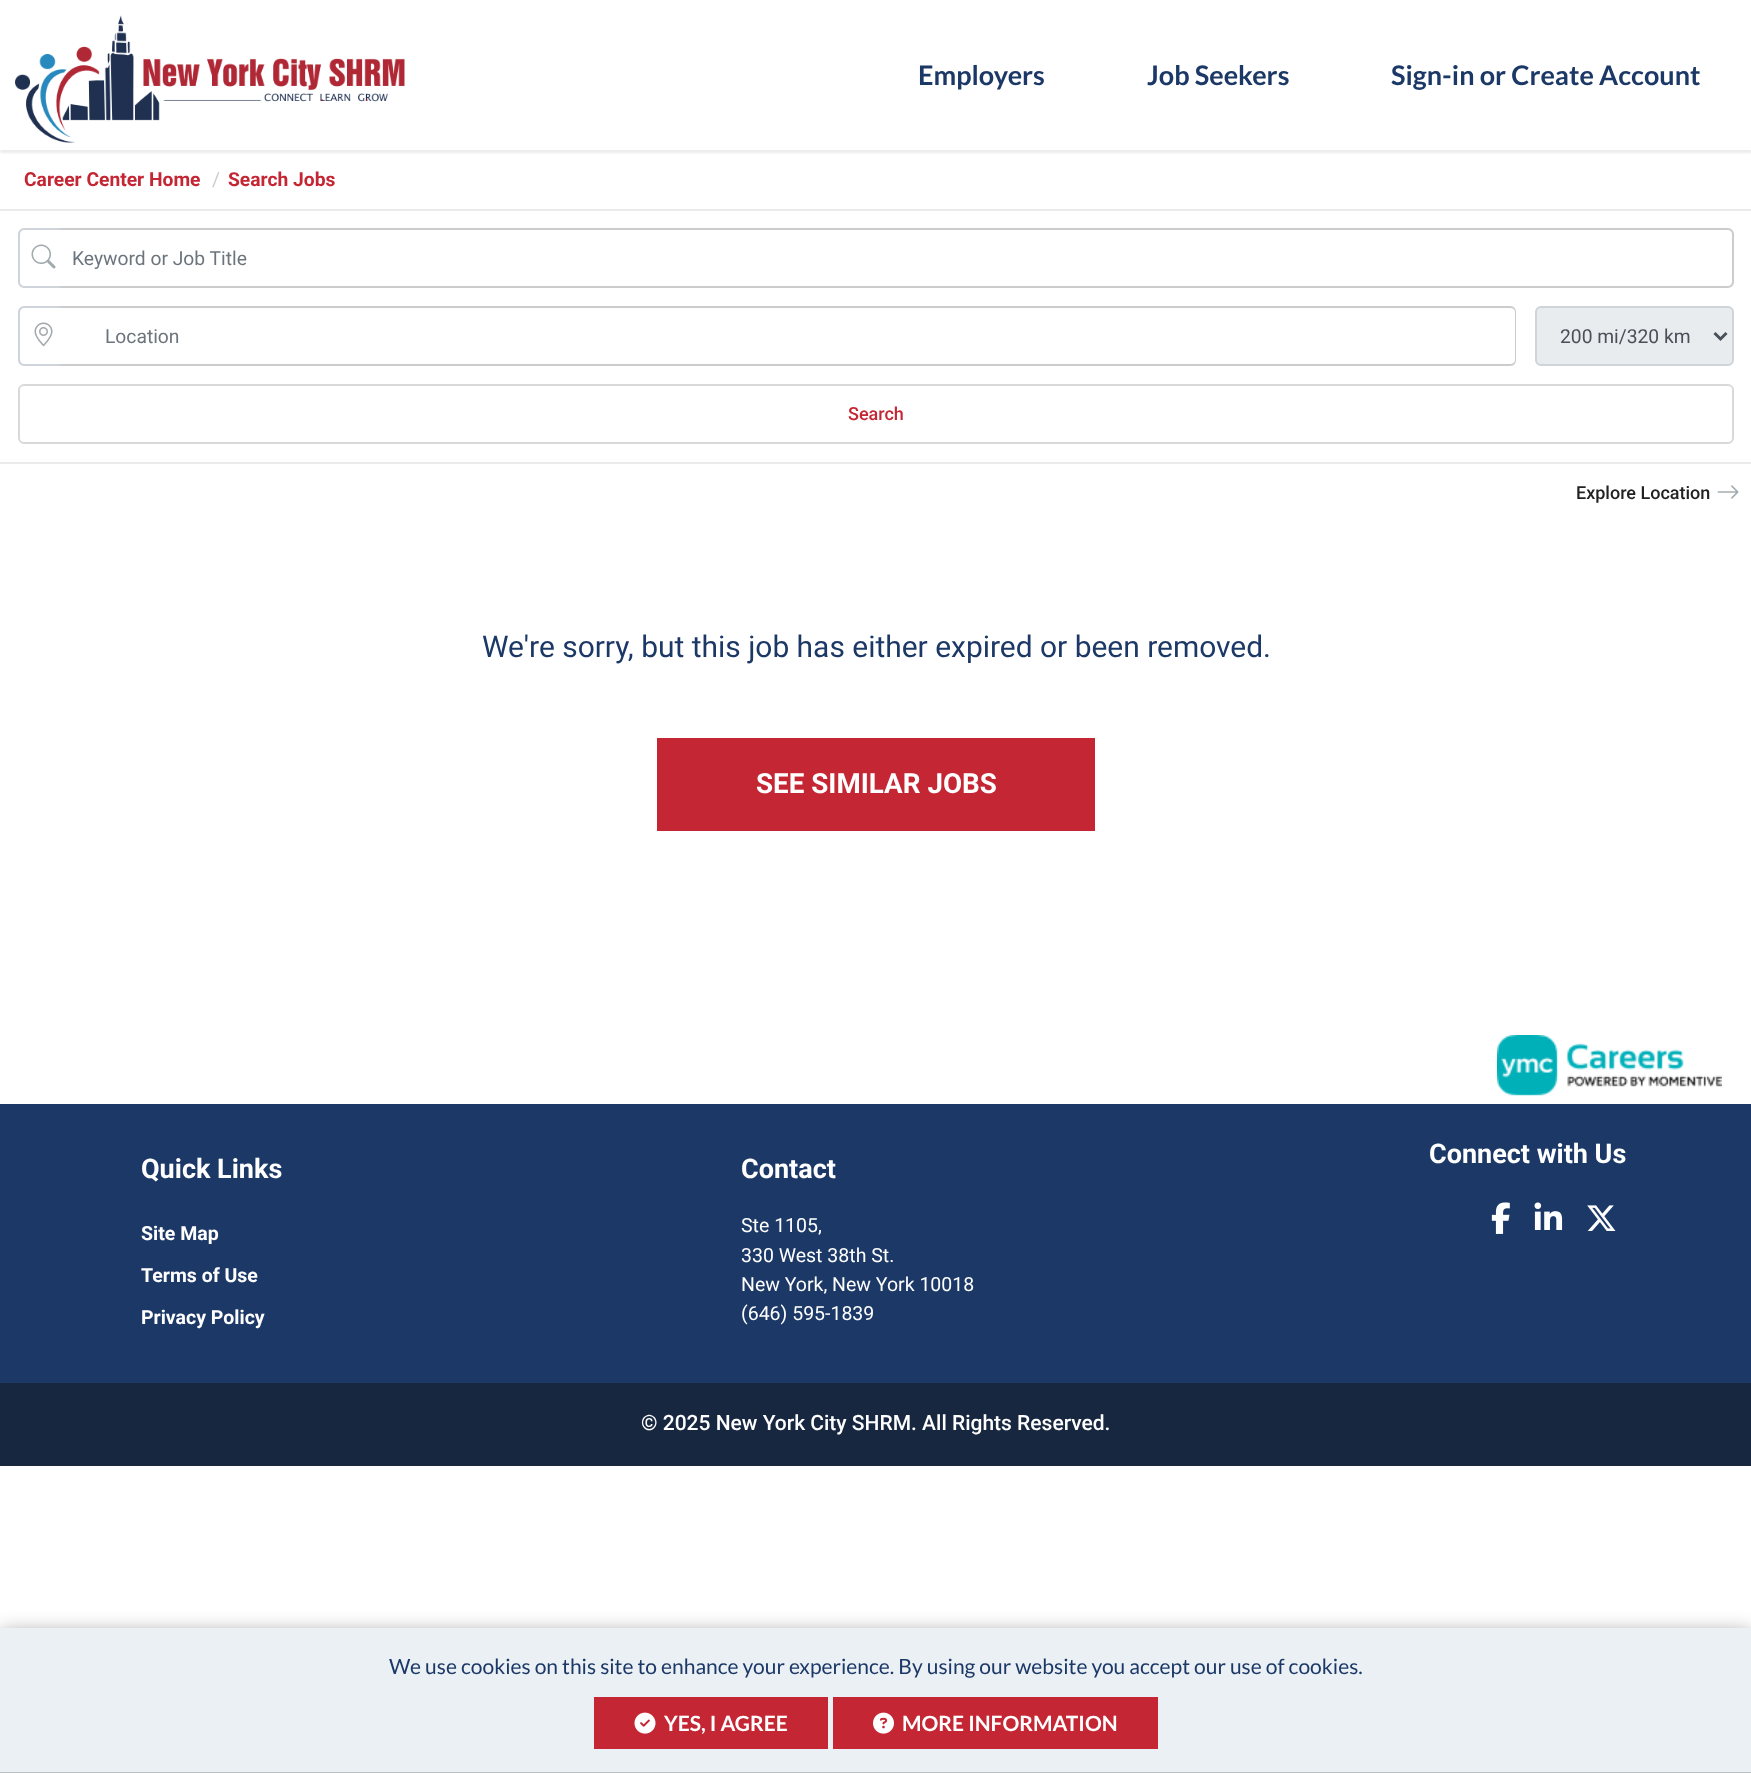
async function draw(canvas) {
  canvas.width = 1751
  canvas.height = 1773
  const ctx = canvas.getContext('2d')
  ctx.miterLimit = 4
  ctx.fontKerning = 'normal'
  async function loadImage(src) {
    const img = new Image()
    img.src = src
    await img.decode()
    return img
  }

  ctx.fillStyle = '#fff'
  ctx.fillRect(0, 0, 1751, 1773)
  ctx.save()
  ctx.beginPath()
  ctx.rect(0, 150, 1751, 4)
  ctx.clip()
  ctx.fillStyle = '#3737371a'
  ctx.filter = 'blur(1.5px)'
  ctx.beginPath()
  ctx.rect(0, 3, 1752, 150)
  ctx.fill()
  ctx.filter = 'none'
  ctx.restore()
  ctx.drawImage(await loadImage('image0.png'), 15, 15, 390, 128)
  ctx.font = 'bold 27px Lato'
  ctx.fillStyle = '#1b3866'
  ctx.fillText('Employers', 918, 85)
  ctx.fillText('Job Seekers', 1147, 85)
  ctx.fillText('Sign-in or Create Account', 1391, 85)
  ctx.font = 'bold 19.25px Roboto'
  ctx.fillStyle = '#c42634'
  ctx.fillText('Career Center Home', 24, 186)
  ctx.font = '19.25px Roboto'
  ctx.fillStyle = '#ccc'
  ctx.fillText('/', 212, 186)
  ctx.font = 'bold 19.25px Roboto'
  ctx.fillStyle = '#c42634'
  ctx.fillText('Search Jobs', 228, 186)
  ctx.fillStyle = '#ebebeb'
  ctx.fillRect(0, 209, 1751, 2)
  ctx.fillRect(0, 462, 1751, 2)
  ctx.fillStyle = '#ced4da'
  ctx.beginPath()
  ctx.moveTo(24, 228)
  ctx.lineTo(62, 228)
  ctx.lineTo(62, 288)
  ctx.lineTo(24, 288)
  ctx.bezierCurveTo(21, 288, 18, 285, 18, 282)
  ctx.lineTo(18, 234)
  ctx.bezierCurveTo(18, 231, 21, 228, 24, 228)
  ctx.closePath()
  ctx.moveTo(24, 230)
  ctx.lineTo(62, 230)
  ctx.lineTo(62, 286)
  ctx.lineTo(24, 286)
  ctx.bezierCurveTo(22, 286, 20, 284, 20, 282)
  ctx.lineTo(20, 234)
  ctx.bezierCurveTo(20, 232, 22, 230, 24, 230)
  ctx.closePath()
  ctx.fill('evenodd')
  ctx.drawImage(await loadImage('image1.png'), 31, 244, 25, 25)
  ctx.fillStyle = '#fff'
  ctx.beginPath()
  ctx.roundRect(60, 230, 1673, 57, [0, 5, 5, 0])
  ctx.fill()
  ctx.fillStyle = '#ccc'
  ctx.beginPath()
  ctx.moveTo(60, 228)
  ctx.lineTo(1728, 228)
  ctx.bezierCurveTo(1731, 228, 1734, 231, 1734, 234)
  ctx.lineTo(1734, 282)
  ctx.bezierCurveTo(1734, 285, 1731, 288, 1728, 288)
  ctx.lineTo(60, 288)
  ctx.closePath()
  ctx.moveTo(60, 230)
  ctx.lineTo(1728, 230)
  ctx.bezierCurveTo(1730, 230, 1732, 232, 1732, 234)
  ctx.lineTo(1732, 282)
  ctx.bezierCurveTo(1732, 284, 1730, 286, 1728, 286)
  ctx.lineTo(60, 286)
  ctx.closePath()
  ctx.fill('evenodd')
  ctx.font = '19.25px Roboto'
  ctx.fillStyle = '#6c757d'
  ctx.fillText('Keyword or Job Title', 72, 265)
  ctx.fillStyle = '#ced4da'
  ctx.beginPath()
  ctx.moveTo(24, 306)
  ctx.lineTo(62, 306)
  ctx.lineTo(62, 366)
  ctx.lineTo(24, 366)
  ctx.bezierCurveTo(21, 366, 18, 363, 18, 360)
  ctx.lineTo(18, 312)
  ctx.bezierCurveTo(18, 309, 21, 306, 24, 306)
  ctx.closePath()
  ctx.moveTo(24, 308)
  ctx.lineTo(62, 308)
  ctx.lineTo(62, 364)
  ctx.lineTo(24, 364)
  ctx.bezierCurveTo(22, 364, 20, 362, 20, 360)
  ctx.lineTo(20, 312)
  ctx.bezierCurveTo(20, 310, 22, 308, 24, 308)
  ctx.closePath()
  ctx.fill('evenodd')
  ctx.drawImage(await loadImage('image2.png'), 34, 322, 19, 25)
  ctx.fillStyle = '#fff'
  ctx.beginPath()
  ctx.roundRect(60, 308, 1455, 57, [0, 5, 5, 0])
  ctx.fill()
  ctx.fillStyle = '#ccc'
  ctx.beginPath()
  ctx.moveTo(60, 306)
  ctx.lineTo(1510, 306)
  ctx.bezierCurveTo(1514, 306, 1516, 309, 1516, 312)
  ctx.lineTo(1516, 360)
  ctx.bezierCurveTo(1516, 363, 1514, 366, 1510, 366)
  ctx.lineTo(60, 366)
  ctx.closePath()
  ctx.moveTo(60, 308)
  ctx.lineTo(1510, 308)
  ctx.bezierCurveTo(1513, 308, 1515, 310, 1515, 312)
  ctx.lineTo(1515, 360)
  ctx.bezierCurveTo(1515, 362, 1513, 364, 1510, 364)
  ctx.lineTo(60, 364)
  ctx.closePath()
  ctx.fill('evenodd')
  ctx.fillStyle = '#6c757d'
  ctx.fillText('Location', 105, 343)
  ctx.fillStyle = '#e9ecef'
  ctx.beginPath()
  ctx.roundRect(1536, 307, 197, 58, 5)
  ctx.fill()
  ctx.strokeStyle = '#ced4da'
  ctx.lineWidth = 2
  ctx.stroke()
  ctx.beginPath()
  ctx.moveTo(1714.5, 333)
  ctx.lineTo(1720.5, 339)
  ctx.lineTo(1726.5, 333)
  ctx.strokeStyle = '#495057'
  ctx.lineWidth = 3
  ctx.stroke()
  ctx.fillStyle = '#495057'
  ctx.fillText('200 mi/320 km', 1560, 343)
  ctx.beginPath()
  ctx.roundRect(19, 385, 1714, 58, 5)
  ctx.strokeStyle = '#d9d9d9'
  ctx.lineWidth = 2
  ctx.stroke()
  ctx.font = '500 18px Roboto'
  ctx.fillStyle = '#c42634'
  ctx.fillText('Search', 848, 420)
  ctx.fillStyle = '#222'
  ctx.fillText('Explore Location', 1576, 499)
  ctx.drawImage(await loadImage('image3.png'), 1717, 485, 22, 14)
  ctx.font = '29.95px Roboto'
  ctx.fillStyle = '#1b3866'
  ctx.fillText('We\'re sorry, but this job has either expired or been removed.', 482, 657)
  ctx.fillStyle = '#c42634'
  ctx.fillRect(657, 738, 438, 93)
  ctx.font = 'bold 27.75px Roboto'
  ctx.fillStyle = '#fff'
  ctx.fillText('SEE SIMILAR JOBS', 756, 793)
  ctx.drawImage(await loadImage('image4.png'), 1497, 1035, 225, 61)
  ctx.fillStyle = '#1b3866'
  ctx.fillRect(0, 1104, 1751, 279)
  ctx.font = 'bold 27px Roboto'
  ctx.fillStyle = '#fff'
  ctx.fillText('Connect with Us', 1429, 1163)
  ctx.drawImage(await loadImage('image5.png'), 1491, 1202, 19, 32)
  ctx.drawImage(await loadImage('image6.png'), 1534, 1202, 29, 28)
  ctx.drawImage(await loadImage('image7.png'), 1587, 1205, 29, 26)
  ctx.fillText('Quick Links', 141, 1178)
  ctx.font = 'bold 19.5px Roboto'
  ctx.fillText('Site Map', 141, 1240)
  ctx.fillText('Terms of Use', 141, 1282)
  ctx.fillText('Privacy Policy', 141, 1324)
  ctx.font = 'bold 27px Roboto'
  ctx.fillText('Contact', 741, 1178)
  ctx.font = '19.5px Roboto'
  ctx.fillText('Ste 1105,', 741, 1232)
  ctx.fillText('330 West 38th St.', 741, 1262)
  ctx.fillText('New York, New York 10018', 741, 1291)
  ctx.fillText('(646) 595-1839', 741, 1320)
  ctx.fillStyle = '#172740'
  ctx.fillRect(0, 1383, 1751, 83)
  ctx.font = '500 21px Roboto'
  ctx.fillStyle = '#fff'
  ctx.fillText('© 2025 New York City SHRM. All Rights Reserved.', 641, 1430)
  ctx.fillStyle = '#00000080'
  ctx.filter = 'blur(11px)'
  ctx.beginPath()
  ctx.rect(0, 1635, 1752, 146)
  ctx.fill()
  ctx.filter = 'none'
  ctx.fillStyle = '#eaf0f4'
  ctx.fillRect(0, 1628, 1751, 144)
  ctx.fillStyle = '#bbc0c3'
  ctx.fillRect(0, 1772, 1751, 1)
  ctx.font = '21px Lato'
  ctx.fillStyle = '#1b3866'
  ctx.fillText('We use cookies on this site to enhance your experience. By using our website you accept our use of cookies.', 389, 1674)
  ctx.fillStyle = '#c42634'
  ctx.fillRect(594, 1697, 234, 52)
  ctx.drawImage(await loadImage('image8.png'), 634, 1712, 22, 22)
  ctx.font = 'bold 21px Lato'
  ctx.fillStyle = '#fff'
  ctx.fillText('YES, I AGREE', 664, 1731)
  ctx.fillStyle = '#c42634'
  ctx.fillRect(833, 1697, 325, 52)
  ctx.drawImage(await loadImage('image9.png'), 873, 1712, 21, 22)
  ctx.fillStyle = '#fff'
  ctx.fillText('MORE INFORMATION', 902, 1731)
}

draw(document.querySelector('canvas'))
